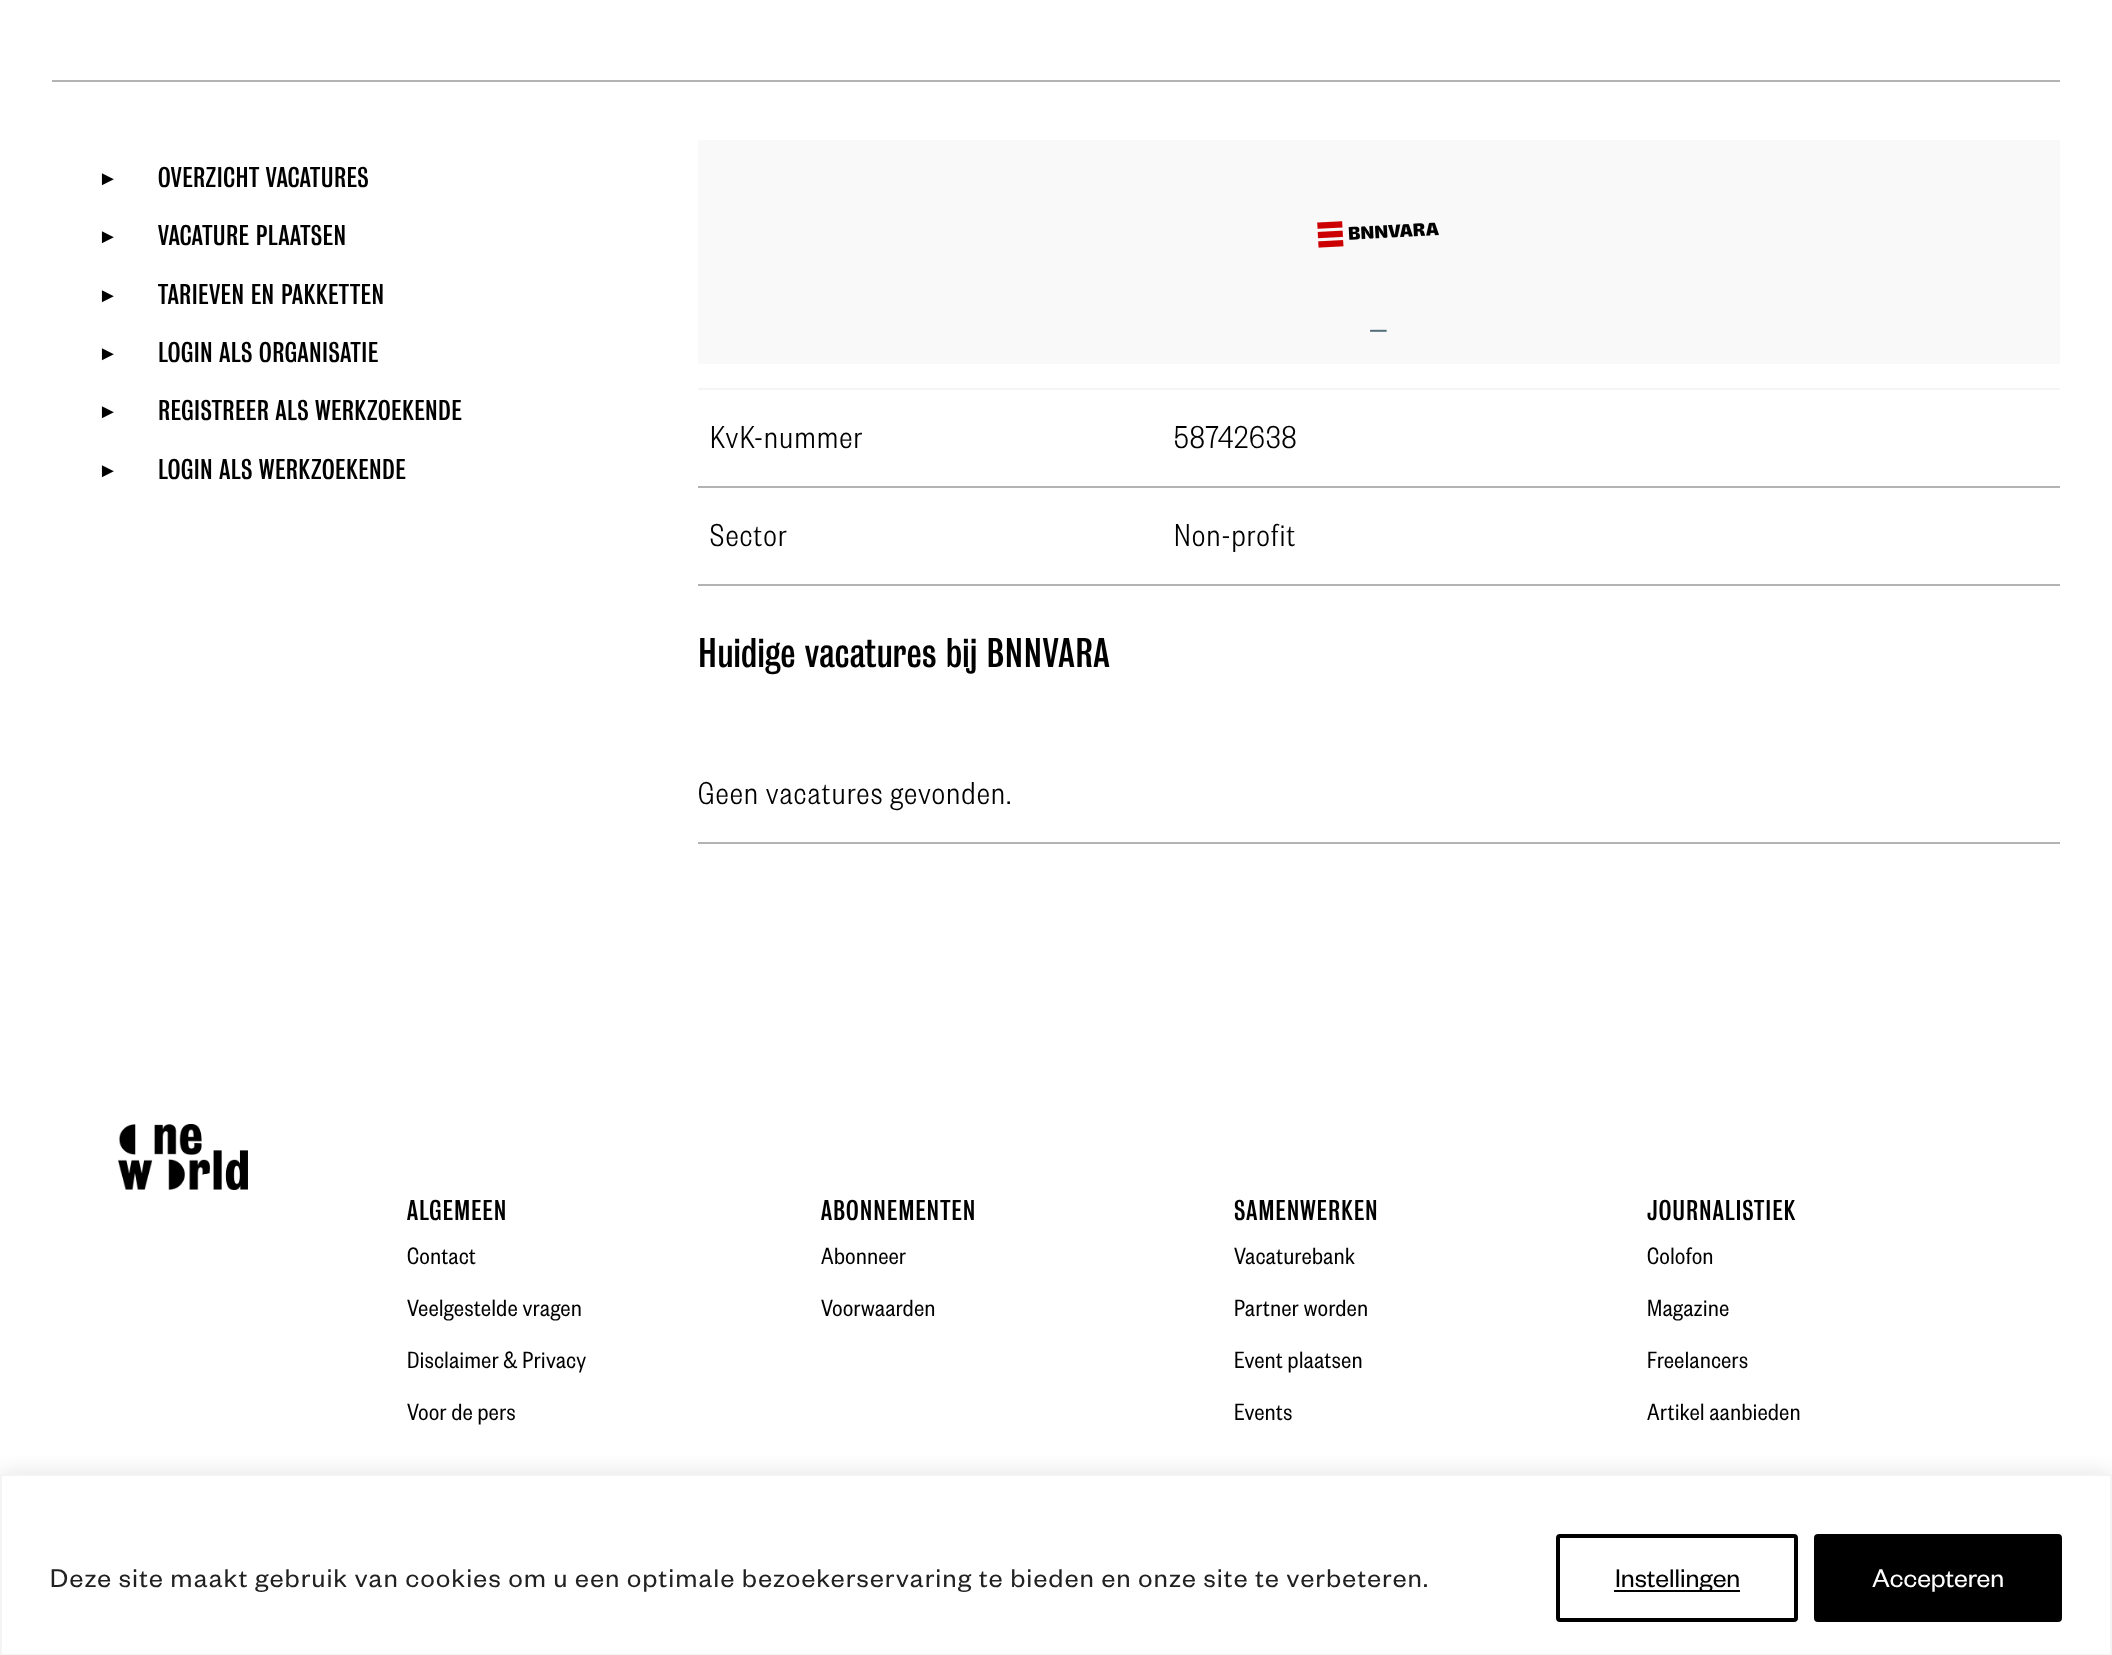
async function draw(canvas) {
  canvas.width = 2112
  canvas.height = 1655
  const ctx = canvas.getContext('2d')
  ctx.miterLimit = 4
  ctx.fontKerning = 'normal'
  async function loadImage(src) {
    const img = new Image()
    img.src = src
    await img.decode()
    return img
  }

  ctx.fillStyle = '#fff'
  ctx.fillRect(0, 0, 2112, 1655)
  ctx.fillStyle = '#b3b3b3'
  ctx.fillRect(52, 80, 2008, 2)
  ctx.letterSpacing = '0.5px'
  ctx.font = '20px Liberation Serif'
  ctx.fillStyle = '#000'
  ctx.fillText('►', 98, 185)
  ctx.font = '26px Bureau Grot'
  ctx.fillText('OVERZICHT VACATURES', 158, 187)
  ctx.font = '20px Liberation Serif'
  ctx.fillText('►', 98, 243)
  ctx.font = '26px Bureau Grot'
  ctx.fillText('VACATURE PLAATSEN', 158, 245)
  ctx.font = '20px Liberation Serif'
  ctx.fillText('►', 98, 302)
  ctx.font = '26px Bureau Grot'
  ctx.fillText('TARIEVEN EN PAKKETTEN', 158, 304)
  ctx.font = '20px Liberation Serif'
  ctx.fillText('►', 98, 360)
  ctx.font = '26px Bureau Grot'
  ctx.fillText('LOGIN ALS ORGANISATIE', 158, 362)
  ctx.font = '20px Liberation Serif'
  ctx.fillText('►', 98, 418)
  ctx.font = '26px Bureau Grot'
  ctx.fillText('REGISTREER ALS WERKZOEKENDE', 158, 420)
  ctx.font = '20px Liberation Serif'
  ctx.fillText('►', 98, 477)
  ctx.font = '26px Bureau Grot'
  ctx.fillText('LOGIN ALS WERKZOEKENDE', 158, 479)
  ctx.fillStyle = '#f9f9f9'
  ctx.fillRect(698, 140, 1362, 224)
  ctx.drawImage(await loadImage('image0.png'), 1317, 221, 122, 27)
  ctx.letterSpacing = '1.39px'
  ctx.font = '36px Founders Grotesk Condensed'
  ctx.fillStyle = '#546e7a'
  ctx.fillText('—', 1369, 340)
  ctx.fillStyle = '#f5f5f5'
  ctx.fillRect(698, 388, 1362, 2)
  ctx.fillStyle = '#b3b3b3'
  ctx.fillRect(698, 486, 1362, 2)
  ctx.font = '300 34.75px Founders Grotesk Condensed'
  ctx.fillStyle = '#000'
  ctx.fillText('KvK-nummer', 710, 448)
  ctx.fillText('58742638', 1174, 448)
  ctx.fillStyle = '#b3b3b3'
  ctx.fillRect(698, 584, 1362, 2)
  ctx.fillStyle = '#000'
  ctx.fillText('Sector', 710, 546)
  ctx.fillText('Non-profit', 1174, 546)
  ctx.letterSpacing = '0.75px'
  ctx.font = '37.75px Bureau Grot'
  ctx.fillText('Huidige vacatures bij BNNVARA', 698, 667)
  ctx.fillStyle = '#b3b3b3'
  ctx.fillRect(698, 842, 1362, 2)
  ctx.letterSpacing = '1.39px'
  ctx.font = '300 34.75px Founders Grotesk Condensed'
  ctx.fillStyle = '#000'
  ctx.fillText('Geen vacatures gevonden.', 698, 804)
  ctx.drawImage(await loadImage('image1.png'), 118, 1124, 130, 66)
  ctx.letterSpacing = '1px'
  ctx.font = '26px Bureau Grot'
  ctx.fillText('ALGEMEEN', 407, 1220)
  ctx.letterSpacing = '0.5px'
  ctx.font = '26px Founders Grotesk Condensed'
  ctx.fillText('Contact', 407, 1264)
  ctx.fillText('Veelgestelde vragen', 407, 1316)
  ctx.fillText('Disclaimer & Privacy', 407, 1368)
  ctx.fillText('Voor de pers', 407, 1420)
  ctx.letterSpacing = '1px'
  ctx.font = '26px Bureau Grot'
  ctx.fillText('ABONNEMENTEN', 821, 1220)
  ctx.letterSpacing = '0.5px'
  ctx.font = '26px Founders Grotesk Condensed'
  ctx.fillText('Abonneer', 821, 1264)
  ctx.fillText('Voorwaarden', 821, 1316)
  ctx.letterSpacing = '1px'
  ctx.font = '26px Bureau Grot'
  ctx.fillText('SAMENWERKEN', 1234, 1220)
  ctx.letterSpacing = '0.5px'
  ctx.font = '26px Founders Grotesk Condensed'
  ctx.fillText('Vacaturebank', 1234, 1264)
  ctx.fillText('Partner worden', 1234, 1316)
  ctx.fillText('Event plaatsen', 1234, 1368)
  ctx.fillText('Events', 1234, 1420)
  ctx.letterSpacing = '1px'
  ctx.font = '26px Bureau Grot'
  ctx.fillText('JOURNALISTIEK', 1647, 1220)
  ctx.letterSpacing = '0.5px'
  ctx.font = '26px Founders Grotesk Condensed'
  ctx.fillText('Colofon', 1647, 1264)
  ctx.fillText('Magazine', 1647, 1316)
  ctx.fillText('Freelancers', 1647, 1368)
  ctx.fillText('Artikel aanbieden', 1647, 1420)
  ctx.fillStyle = '#acabab4d'
  ctx.filter = 'blur(10px)'
  ctx.beginPath()
  ctx.rect(0, 1472, 2112, 182)
  ctx.fill()
  ctx.filter = 'none'
  ctx.fillStyle = '#fff'
  ctx.beginPath()
  ctx.rect(1, 1475, 2110, 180)
  ctx.fill()
  ctx.strokeStyle = '#f4f4f4'
  ctx.lineWidth = 2
  ctx.stroke()
  ctx.letterSpacing = '1.39px'
  ctx.font = '28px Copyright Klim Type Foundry'
  ctx.fillStyle = '#212121'
  ctx.fillText('Deze site maakt gebruik van cookies om u een optimale bezoekerservaring te bieden en onze site te verbeteren.', 50, 1587)
  ctx.beginPath()
  ctx.roundRect(1558, 1536, 238, 84, 2)
  ctx.strokeStyle = '#000'
  ctx.lineWidth = 4
  ctx.stroke()
  ctx.fillStyle = '#000'
  ctx.fillRect(1614, 1590, 126, 2)
  ctx.letterSpacing = '0px'
  ctx.fillText('Instellingen', 1615, 1587)
  ctx.beginPath()
  ctx.roundRect(1816, 1536, 244, 84, 2)
  ctx.fill()
  ctx.stroke()
  ctx.fillStyle = '#fff'
  ctx.fillText('Accepteren', 1872, 1587)
}

draw(document.querySelector('canvas'))
